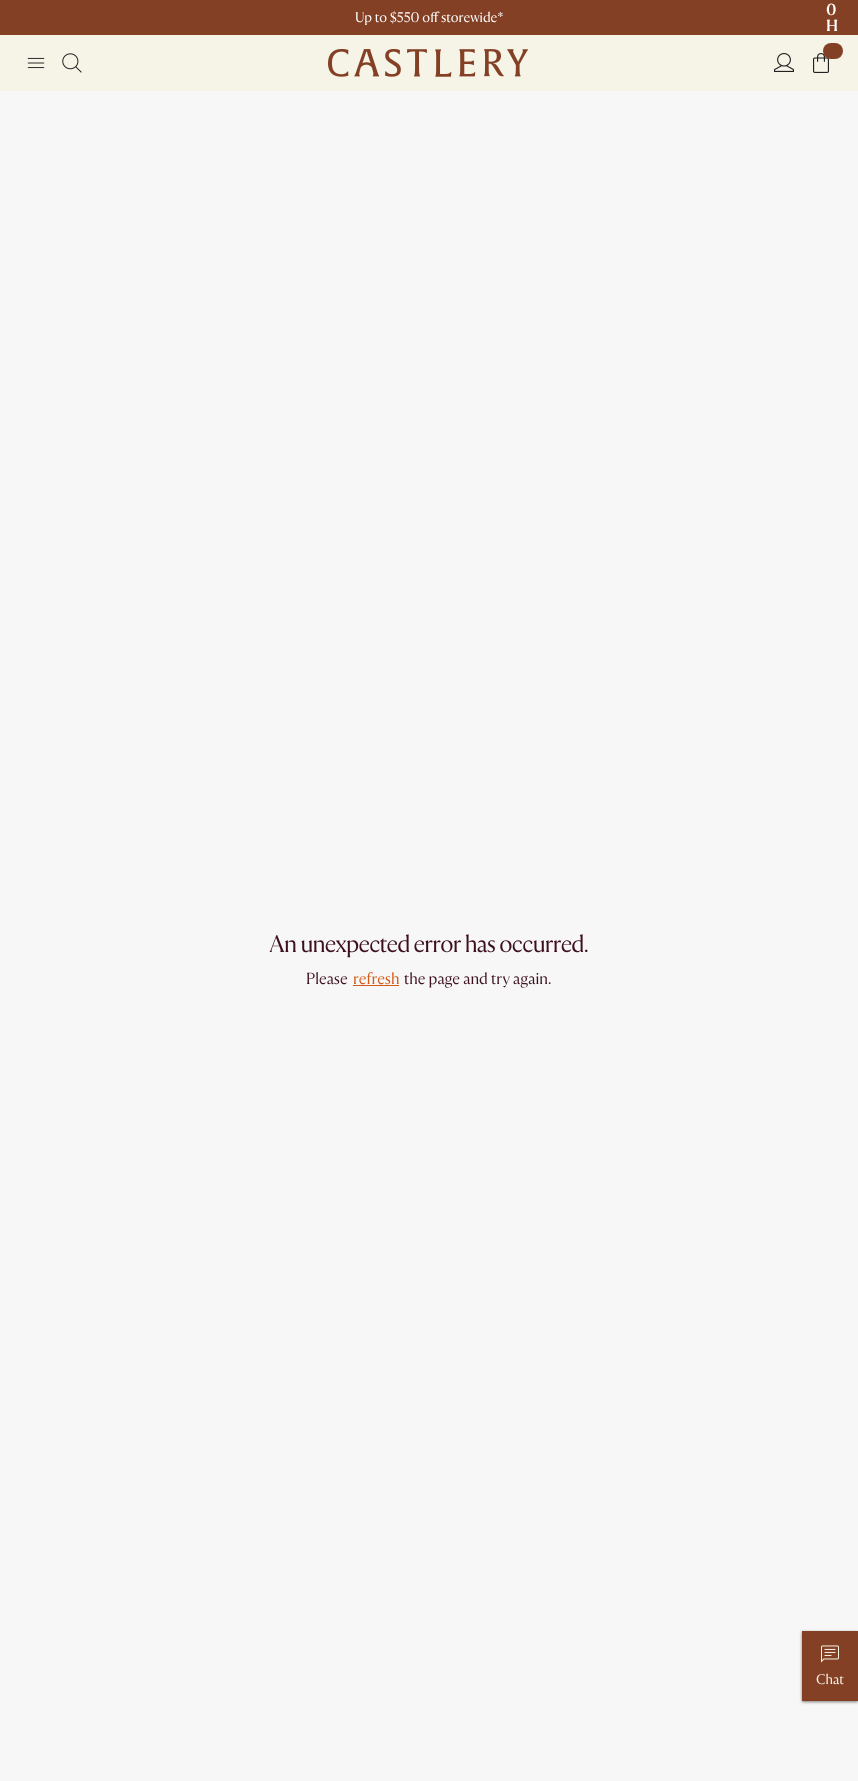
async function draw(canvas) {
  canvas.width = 858
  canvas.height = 1781
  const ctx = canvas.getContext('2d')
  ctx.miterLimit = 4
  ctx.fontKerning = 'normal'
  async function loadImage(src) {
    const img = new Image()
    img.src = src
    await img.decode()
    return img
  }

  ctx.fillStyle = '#f7f7f7'
  ctx.fillRect(0, 0, 858, 1781)
  ctx.fillStyle = '#844025'
  ctx.fillRect(0, 0, 858, 35)
  ctx.font = '14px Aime'
  ctx.fillStyle = '#fff'
  ctx.fillText('Up to $550 off storewide*', 355, 22)
  ctx.font = 'bold 16px Aime'
  ctx.fillText('0', 826, 15)
  ctx.fillText('H', 826, 31)
  ctx.fillStyle = '#f6f3e7'
  ctx.fillRect(0, 35, 858, 56)
  ctx.drawImage(await loadImage('image0.png'), 27, 57, 18, 12)
  ctx.drawImage(await loadImage('image1.png'), 62, 53, 20, 20)
  ctx.drawImage(await loadImage('image2.png'), 328, 49, 200, 28)
  ctx.drawImage(await loadImage('image3.png'), 774, 53, 20, 19)
  ctx.drawImage(await loadImage('image4.png'), 813, 53, 16, 20)
  ctx.fillStyle = '#844025'
  ctx.beginPath()
  ctx.roundRect(823, 43, 20, 16, 8)
  ctx.fill()
  ctx.letterSpacing = '-0.75px'
  ctx.font = '24px Aime'
  ctx.fillStyle = '#3c101e'
  ctx.fillText('An unexpected error has occurred.', 269, 952)
  ctx.letterSpacing = '0px'
  ctx.font = '16px Aime'
  ctx.fillText('Please', 306, 984)
  ctx.fillStyle = '#d25c1b'
  ctx.fillText('refresh', 353, 984)
  ctx.fillRect(353, 985, 46, 1)
  ctx.fillStyle = '#3c101e'
  ctx.fillText('the page and try again.', 404, 984)
  ctx.fillStyle = '#00000080'
  ctx.filter = 'blur(1.5px)'
  ctx.beginPath()
  ctx.rect(802, 1632, 56, 70)
  ctx.fill()
  ctx.filter = 'none'
  ctx.fillStyle = '#844025'
  ctx.fillRect(802, 1631, 56, 70)
  ctx.drawImage(await loadImage('image5.png'), 821, 1645, 18, 18)
  ctx.font = '14px Aime'
  ctx.fillStyle = '#f6f3e7'
  ctx.fillText('Chat', 816, 1684)
}

draw(document.querySelector('canvas'))
